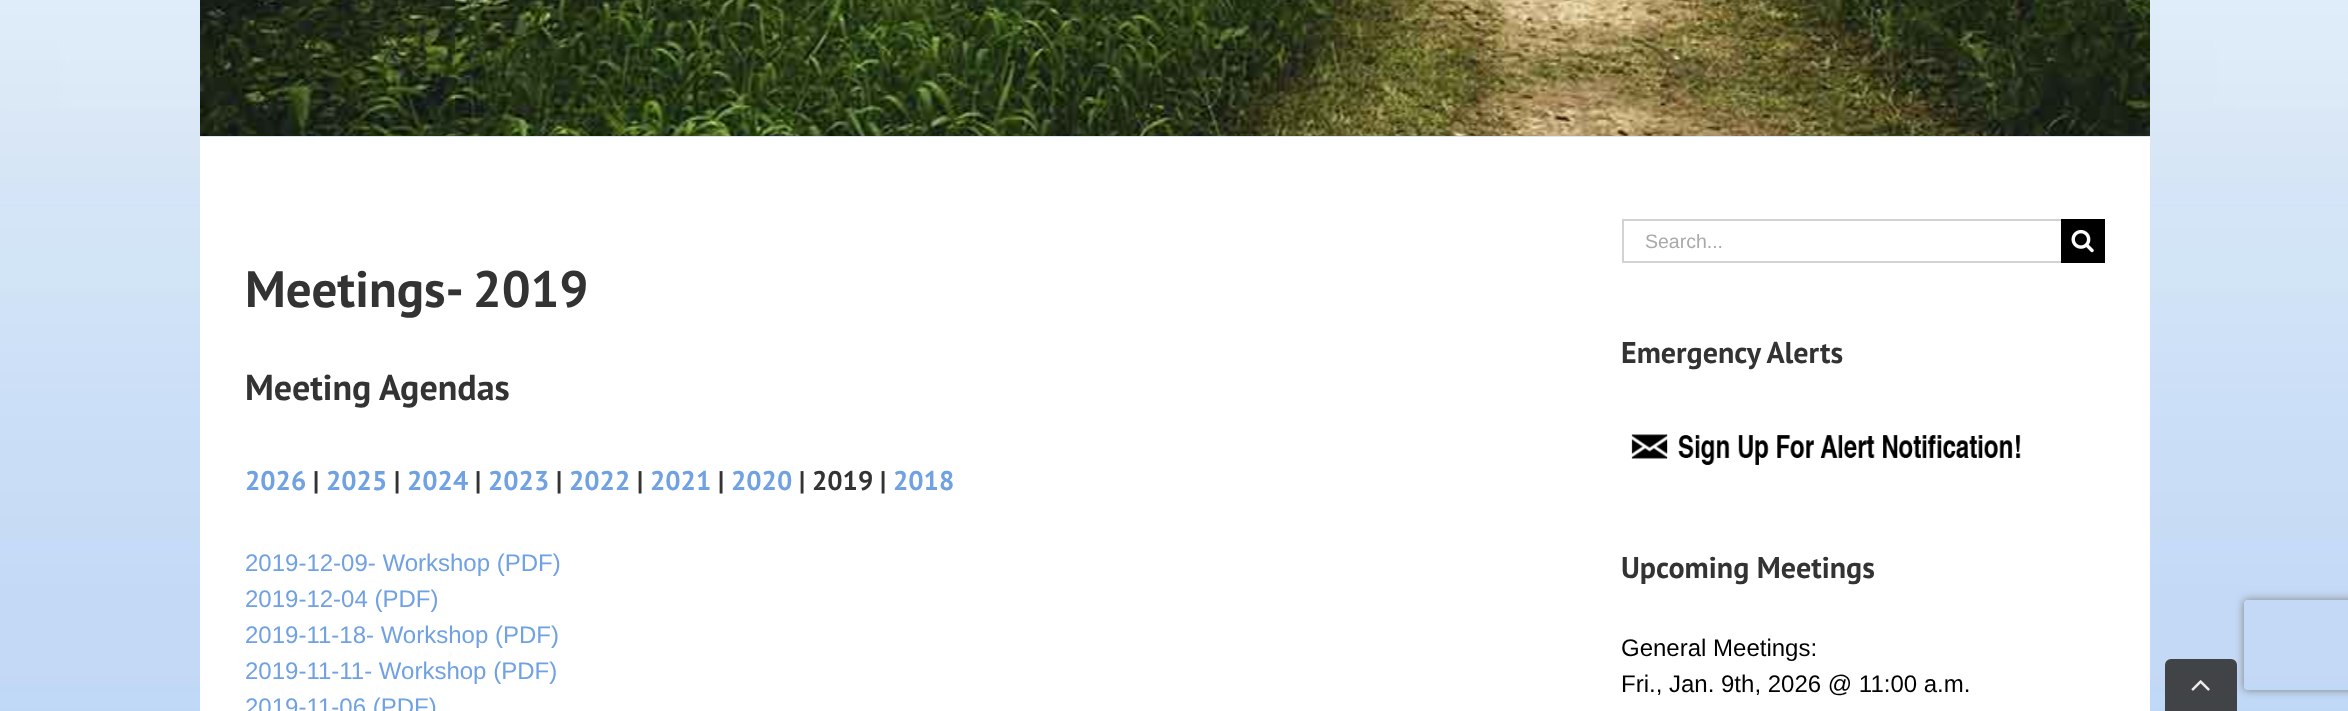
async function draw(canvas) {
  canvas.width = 2348
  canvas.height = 711
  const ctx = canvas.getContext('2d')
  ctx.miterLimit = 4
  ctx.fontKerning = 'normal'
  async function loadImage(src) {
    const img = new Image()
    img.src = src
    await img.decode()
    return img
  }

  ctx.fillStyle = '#fff'
  ctx.fillRect(0, 0, 2348, 711)
  ctx.drawImage(await loadImage('image0.png'), 0, 0, 2348, 711)
  ctx.drawImage(await loadImage('image1.png'), 200, 0, 1950, 136)
  ctx.fillRect(200, 137, 1950, 574)
  ctx.font = 'bold 51px PT Sans'
  ctx.fillStyle = '#333'
  ctx.fillText('Meetings- 2019', 245, 307)
  ctx.font = 'bold 36px PT Sans'
  ctx.fillText('Meeting Agendas', 245, 400)
  ctx.font = 'bold 27px PT Sans'
  ctx.fillStyle = '#70a1e2'
  ctx.fillText('2026', 245, 490)
  ctx.fillStyle = '#333'
  ctx.fillText('|', 313, 490)
  ctx.fillStyle = '#70a1e2'
  ctx.fillText('2025', 326, 490)
  ctx.fillStyle = '#333'
  ctx.fillText('|', 394, 490)
  ctx.fillStyle = '#70a1e2'
  ctx.fillText('2024', 407, 490)
  ctx.fillStyle = '#333'
  ctx.fillText('|', 475, 490)
  ctx.fillStyle = '#70a1e2'
  ctx.fillText('2023', 488, 490)
  ctx.fillStyle = '#333'
  ctx.fillText('|', 556, 490)
  ctx.fillStyle = '#70a1e2'
  ctx.fillText('2022', 569, 490)
  ctx.fillStyle = '#333'
  ctx.fillText('|', 637, 490)
  ctx.fillStyle = '#70a1e2'
  ctx.fillText('2021', 650, 490)
  ctx.fillStyle = '#333'
  ctx.fillText('|', 718, 490)
  ctx.fillStyle = '#70a1e2'
  ctx.fillText('2020', 731, 490)
  ctx.fillStyle = '#333'
  ctx.fillText('| 2019 |', 799, 490)
  ctx.fillStyle = '#70a1e2'
  ctx.fillText('2018', 893, 490)
  ctx.font = '24px Liberation Sans'
  ctx.fillText('2019-12-09- Workshop (PDF)', 245, 571)
  ctx.fillText('2019-12-04 (PDF)', 245, 607)
  ctx.fillText('2019-11-18- Workshop (PDF)', 245, 643)
  ctx.fillText('2019-11-11- Workshop (PDF)', 245, 679)
  ctx.fillText('2019-11-06 (PDF)', 245, 715)
  ctx.fillStyle = '#d2d2d2'
  ctx.fillRect(1622, 219, 439, 2)
  ctx.fillRect(1622, 261, 439, 2)
  ctx.fillRect(1622, 219, 2, 44)
  ctx.font = '19.5px Liberation Sans'
  ctx.fillStyle = '#aaa9a9'
  ctx.fillText('Search...', 1645, 248)
  ctx.fillStyle = '#000'
  ctx.fillRect(2061, 219, 44, 44)
  ctx.drawImage(await loadImage('image2.png'), 2071, 229, 23, 24)
  ctx.font = 'bold 30px PT Sans'
  ctx.fillStyle = '#333'
  ctx.fillText('Emergency Alerts', 1621, 363)
  ctx.drawImage(await loadImage('image3.png'), 1631, 434, 390, 31)
  ctx.fillText('Upcoming Meetings', 1621, 578)
  ctx.font = '24px Liberation Sans'
  ctx.fillStyle = '#000'
  ctx.fillText('General Meetings:', 1621, 656)
  ctx.fillText('Fri., Jan. 9th, 2026 @ 11:00 a.m.', 1621, 692)
  ctx.save()
  ctx.beginPath()
  ctx.moveTo(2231, 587)
  ctx.lineTo(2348, 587)
  ctx.lineTo(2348, 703)
  ctx.lineTo(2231, 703)
  ctx.closePath()
  ctx.moveTo(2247, 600)
  ctx.lineTo(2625, 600)
  ctx.bezierCurveTo(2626.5, 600, 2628, 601.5, 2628, 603)
  ctx.lineTo(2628, 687)
  ctx.bezierCurveTo(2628, 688.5, 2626.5, 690, 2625, 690)
  ctx.lineTo(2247, 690)
  ctx.bezierCurveTo(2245.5, 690, 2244, 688.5, 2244, 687)
  ctx.lineTo(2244, 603)
  ctx.bezierCurveTo(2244, 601.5, 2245.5, 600, 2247, 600)
  ctx.closePath()
  ctx.clip('evenodd')
  ctx.fillStyle = '#808080'
  ctx.filter = 'blur(4px)'
  ctx.beginPath()
  ctx.roundRect(2244, 600, 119, 90, 3)
  ctx.fill()
  ctx.filter = 'none'
  ctx.restore()
  ctx.fillStyle = '#333333e6'
  ctx.beginPath()
  ctx.roundRect(2165, 659, 72, 52, [6, 6, 0, 0])
  ctx.fill()
  ctx.drawImage(await loadImage('image4.png'), 2191, 680, 19, 11)
}

draw(document.querySelector('canvas'))
